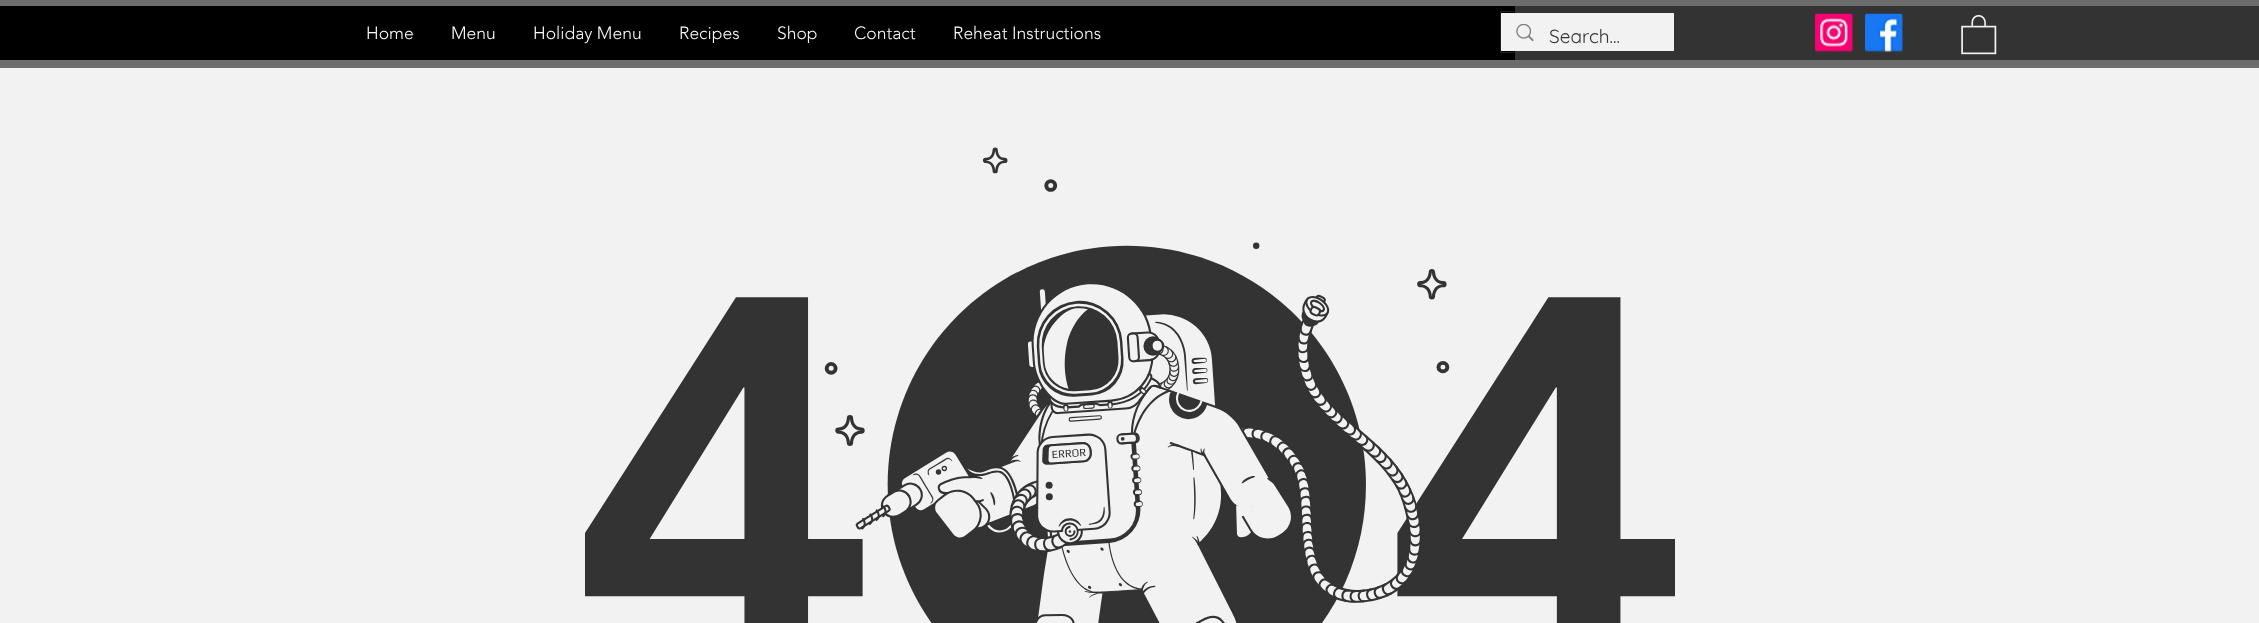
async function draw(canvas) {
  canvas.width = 2259
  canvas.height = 623
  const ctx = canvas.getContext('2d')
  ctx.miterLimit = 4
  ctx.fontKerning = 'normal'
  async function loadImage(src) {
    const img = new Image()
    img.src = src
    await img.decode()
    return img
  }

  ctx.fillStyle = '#f2f2f2'
  ctx.fillRect(0, 0, 2259, 623)
  ctx.fillStyle = '#6c6c6c'
  ctx.fillRect(0, 0, 2259, 68)
  ctx.fillStyle = '#000'
  ctx.fillRect(0, 6, 1515, 54)
  ctx.font = '300 17.5px "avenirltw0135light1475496"'
  ctx.fillStyle = '#fafafa'
  ctx.fillText('Home', 366, 39)
  ctx.fillText('Menu', 451, 39)
  ctx.fillText('Holiday Menu', 533, 39)
  ctx.fillText('Recipes', 679, 39)
  ctx.fillText('Shop', 777, 39)
  ctx.fillText('Contact', 854, 39)
  ctx.fillText('Reheat Instructions', 953, 39)
  ctx.fillStyle = '#333'
  ctx.fillRect(1515, 6, 744, 54)
  ctx.strokeStyle = '#33333399'
  ctx.strokeRect(1500.5, 11.5, 174, 41)
  ctx.fillStyle = '#f2f2f2'
  ctx.fillRect(1501, 13, 173, 38)
  ctx.drawImage(await loadImage('image0.png'), 1516, 24, 18, 17)
  ctx.font = '19px Quicksand'
  ctx.fillStyle = '#333'
  ctx.fillText('Search...', 1549, 43)
  ctx.drawImage(await loadImage('image1.png'), 1815, 13, 38, 39)
  ctx.drawImage(await loadImage('image2.png'), 1865, 13, 38, 39)
  ctx.drawImage(await loadImage('image3.png'), 1961, 14, 36, 41)
  ctx.drawImage(await loadImage('image4.png'), 585, 147, 1090, 476)
}

draw(document.querySelector('canvas'))
